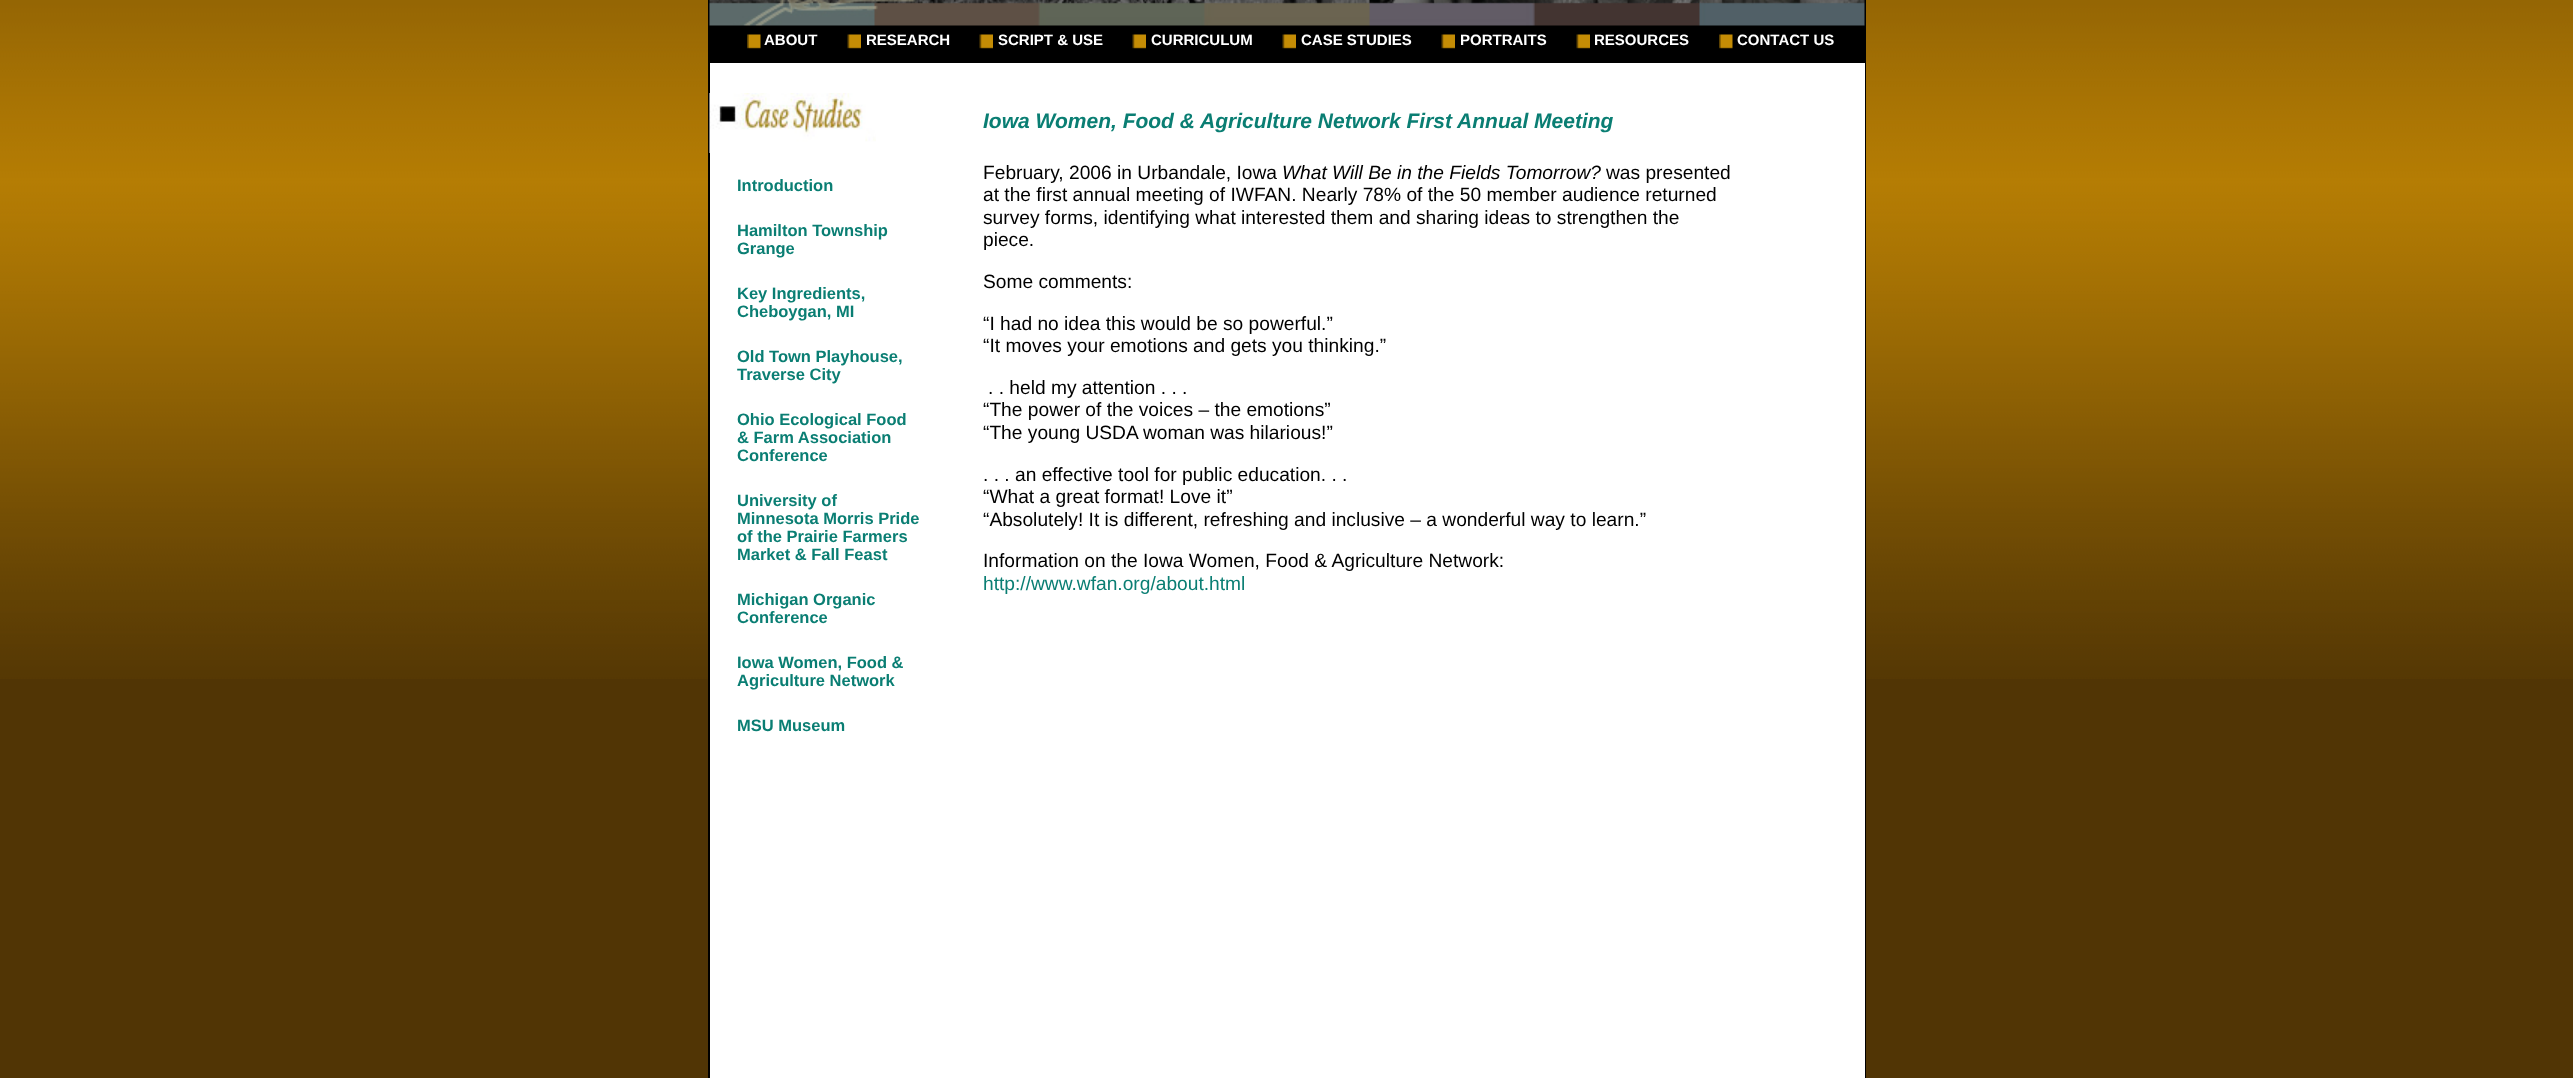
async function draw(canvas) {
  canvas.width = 2573
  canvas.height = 1078
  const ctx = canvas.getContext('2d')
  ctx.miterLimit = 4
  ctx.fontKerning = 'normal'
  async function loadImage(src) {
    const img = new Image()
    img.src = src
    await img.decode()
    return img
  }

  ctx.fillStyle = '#513505'
  ctx.fillRect(0, 0, 2573, 1078)
  ctx.drawImage(await loadImage('image0.png'), 0, 0, 2573, 679)
  ctx.fillStyle = '#000'
  ctx.fillRect(708, 0, 1158, 1078)
  ctx.drawImage(await loadImage('image1.png'), 709, 0, 1156, 26)
  ctx.drawImage(await loadImage('image2.png'), 747, 34, 14, 15)
  ctx.font = 'bold 15px Liberation Sans'
  ctx.fillStyle = '#fff'
  ctx.fillText('ABOUT', 764, 45)
  ctx.drawImage(await loadImage('image3.png'), 847, 34, 14, 15)
  ctx.fillText('RESEARCH', 866, 45)
  ctx.drawImage(await loadImage('image3.png'), 979, 34, 14, 15)
  ctx.fillText('SCRIPT & USE', 998, 45)
  ctx.drawImage(await loadImage('image3.png'), 1132, 34, 14, 15)
  ctx.fillText('CURRICULUM', 1151, 45)
  ctx.drawImage(await loadImage('image3.png'), 1282, 34, 14, 15)
  ctx.fillText('CASE STUDIES', 1301, 45)
  ctx.drawImage(await loadImage('image3.png'), 1441, 34, 14, 15)
  ctx.fillText('PORTRAITS', 1460, 45)
  ctx.drawImage(await loadImage('image3.png'), 1576, 34, 14, 15)
  ctx.fillText('RESOURCES', 1594, 45)
  ctx.drawImage(await loadImage('image4.png'), 1719, 34, 14, 15)
  ctx.fillText('CONTACT US', 1737, 45)
  ctx.fillRect(710, 63, 1155, 1015)
  ctx.drawImage(await loadImage('image5.png'), 709, 93, 167, 60)
  ctx.font = 'bold 16.5px Liberation Sans'
  ctx.fillStyle = '#0a7e73'
  ctx.fillText('Introduction', 737, 191)
  ctx.fillText('Hamilton Township', 737, 236)
  ctx.fillText('Grange', 737, 254)
  ctx.fillText('Key Ingredients,', 737, 299)
  ctx.fillText('Cheboygan, MI', 737, 317)
  ctx.fillText('Old Town Playhouse,', 737, 362)
  ctx.fillText('Traverse City', 737, 380)
  ctx.fillText('Ohio Ecological Food', 737, 425)
  ctx.fillText('& Farm Association', 737, 443)
  ctx.fillText('Conference', 737, 461)
  ctx.fillText('University of', 737, 506)
  ctx.fillText('Minnesota Morris Pride', 737, 524)
  ctx.fillText('of the Prairie Farmers', 737, 542)
  ctx.fillText('Market & Fall Feast', 737, 560)
  ctx.fillText('Michigan Organic', 737, 605)
  ctx.fillText('Conference', 737, 623)
  ctx.fillText('Iowa Women, Food &', 737, 668)
  ctx.fillText('Agriculture Network', 737, 686)
  ctx.fillText('MSU Museum', 737, 731)
  ctx.font = 'italic bold 21px Liberation Sans'
  ctx.fillText('Iowa Women, Food & Agriculture Network First Annual Meeting', 983, 128)
  ctx.font = '19.2px Liberation Sans'
  ctx.fillStyle = '#000'
  ctx.fillText('February, 2006 in Urbandale, Iowa', 983, 179)
  ctx.font = 'italic 19.2px Liberation Sans'
  ctx.fillText('What Will Be in the Fields Tomorrow?', 1282, 179)
  ctx.font = '19.2px Liberation Sans'
  ctx.fillText('was presented', 1606, 179)
  ctx.fillText('at the first annual meeting of IWFAN. Nearly 78% of the 50 member audience returned', 983, 201)
  ctx.fillText('survey forms, identifying what interested them and sharing ideas to strengthen the', 983, 224)
  ctx.fillText('piece.', 983, 246)
  ctx.fillText('Some comments:', 983, 288)
  ctx.fillText('“I had no idea this would be so powerful.”', 983, 330)
  ctx.fillText('“It moves your emotions and gets you thinking.”', 983, 352)
  ctx.fillText('. . held my attention . . .', 988, 394)
  ctx.fillText('“The power of the voices – the emotions”', 983, 416)
  ctx.fillText('“The young USDA woman was hilarious!”', 983, 439)
  ctx.fillText('. . . an effective tool for public education. . .', 983, 481)
  ctx.fillText('“What a great format! Love it”', 983, 503)
  ctx.fillText('“Absolutely! It is different, refreshing and inclusive – a wonderful way to learn.”', 983, 526)
  ctx.fillText('Information on the Iowa Women, Food & Agriculture Network:', 983, 567)
  ctx.fillStyle = '#0a7e73'
  ctx.fillText('http://www.wfan.org/about.html', 983, 590)
}

draw(document.querySelector('canvas'))
